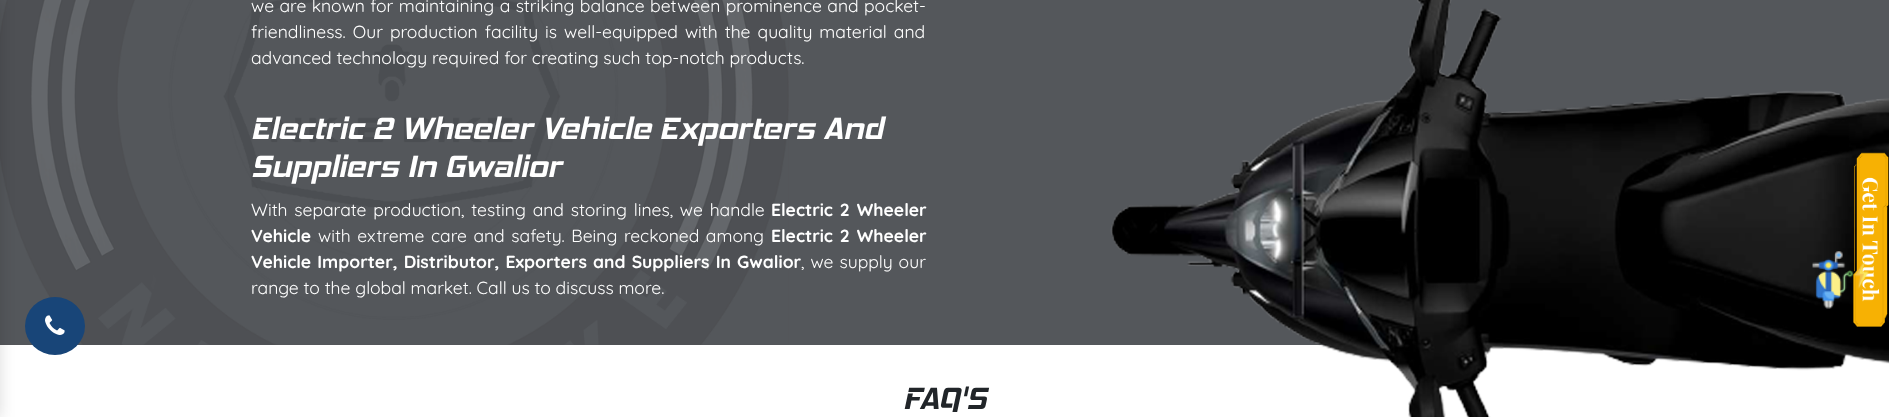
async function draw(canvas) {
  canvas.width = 1889
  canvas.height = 417
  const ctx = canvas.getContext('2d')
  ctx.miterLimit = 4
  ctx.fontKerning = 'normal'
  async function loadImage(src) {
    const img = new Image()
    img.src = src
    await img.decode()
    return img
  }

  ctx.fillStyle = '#fff'
  ctx.fillRect(0, 0, 1889, 417)
  ctx.fillStyle = '#54575b'
  ctx.fillRect(0, 0, 1889, 345)
  ctx.drawImage(await loadImage('image0.png'), 0, 0, 789, 345)
  ctx.fillStyle = '#00000024'
  ctx.filter = 'blur(7.5px)'
  ctx.beginPath()
  ctx.rect(-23, 0, 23, 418)
  ctx.fill()
  ctx.filter = 'none'
  ctx.wordSpacing = '0.6px'
  ctx.font = '17.5px Quicksand'
  ctx.fillStyle = '#fff'
  ctx.fillText('we are known for maintaining a striking balance between prominence and pocket-', 251, 12)
  ctx.wordSpacing = '2.25px'
  ctx.fillText('friendliness. Our production facility is well-equipped with the quality material and', 251, 38)
  ctx.wordSpacing = '0px'
  ctx.fillText('advanced technology required for creating such top-notch products.', 251, 64)
  ctx.font = 'italic bold 31.25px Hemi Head'
  ctx.fillText('Electric 2 Wheeler Vehicle Exporters And', 251, 139)
  ctx.fillText('Suppliers In Gwalior', 251, 177)
  ctx.wordSpacing = '2px'
  ctx.font = '17.5px Quicksand'
  ctx.fillText('With separate production, testing and storing lines, we handle', 251, 216)
  ctx.font = 'bold 17.5px Quicksand'
  ctx.fillText('Electric 2 Wheeler', 771, 216)
  ctx.wordSpacing = '0px'
  ctx.fillText('Vehicle', 251, 242)
  ctx.wordSpacing = '1.75px'
  ctx.font = '17.5px Quicksand'
  ctx.fillText('with extreme care and safety. Being reckoned among', 318, 242)
  ctx.wordSpacing = '2px'
  ctx.font = 'bold 17.5px Quicksand'
  ctx.fillText('Electric 2 Wheeler', 771, 242)
  ctx.wordSpacing = '1.25px'
  ctx.fillText('Vehicle Importer, Distributor, Exporters and Suppliers In Gwalior', 251, 268)
  ctx.font = '17.5px Quicksand'
  ctx.fillText(', we supply our', 801, 268)
  ctx.wordSpacing = '0px'
  ctx.fillText('range to the global market. Call us to discuss more.', 251, 294)
  ctx.drawImage(await loadImage('image1.png'), 1110, 0, 779, 417)
  ctx.drawImage(await loadImage('image3.png'), 1853, 152, 36, 175)
  ctx.drawImage(await loadImage('image2.png'), 1812, 251, 57, 58)
  ctx.fillStyle = '#184578'
  ctx.beginPath()
  ctx.ellipse(55, 326, 30, 29, 0, 0, 2 * Math.PI)
  ctx.fill()
  ctx.drawImage(await loadImage('image4.png'), 45, 315, 20, 20)
  ctx.font = 'italic bold 31.25px Hemi Head'
  ctx.fillStyle = '#212529'
  ctx.fillText('FAQ\'S', 903, 409)
}

draw(document.querySelector('canvas'))
